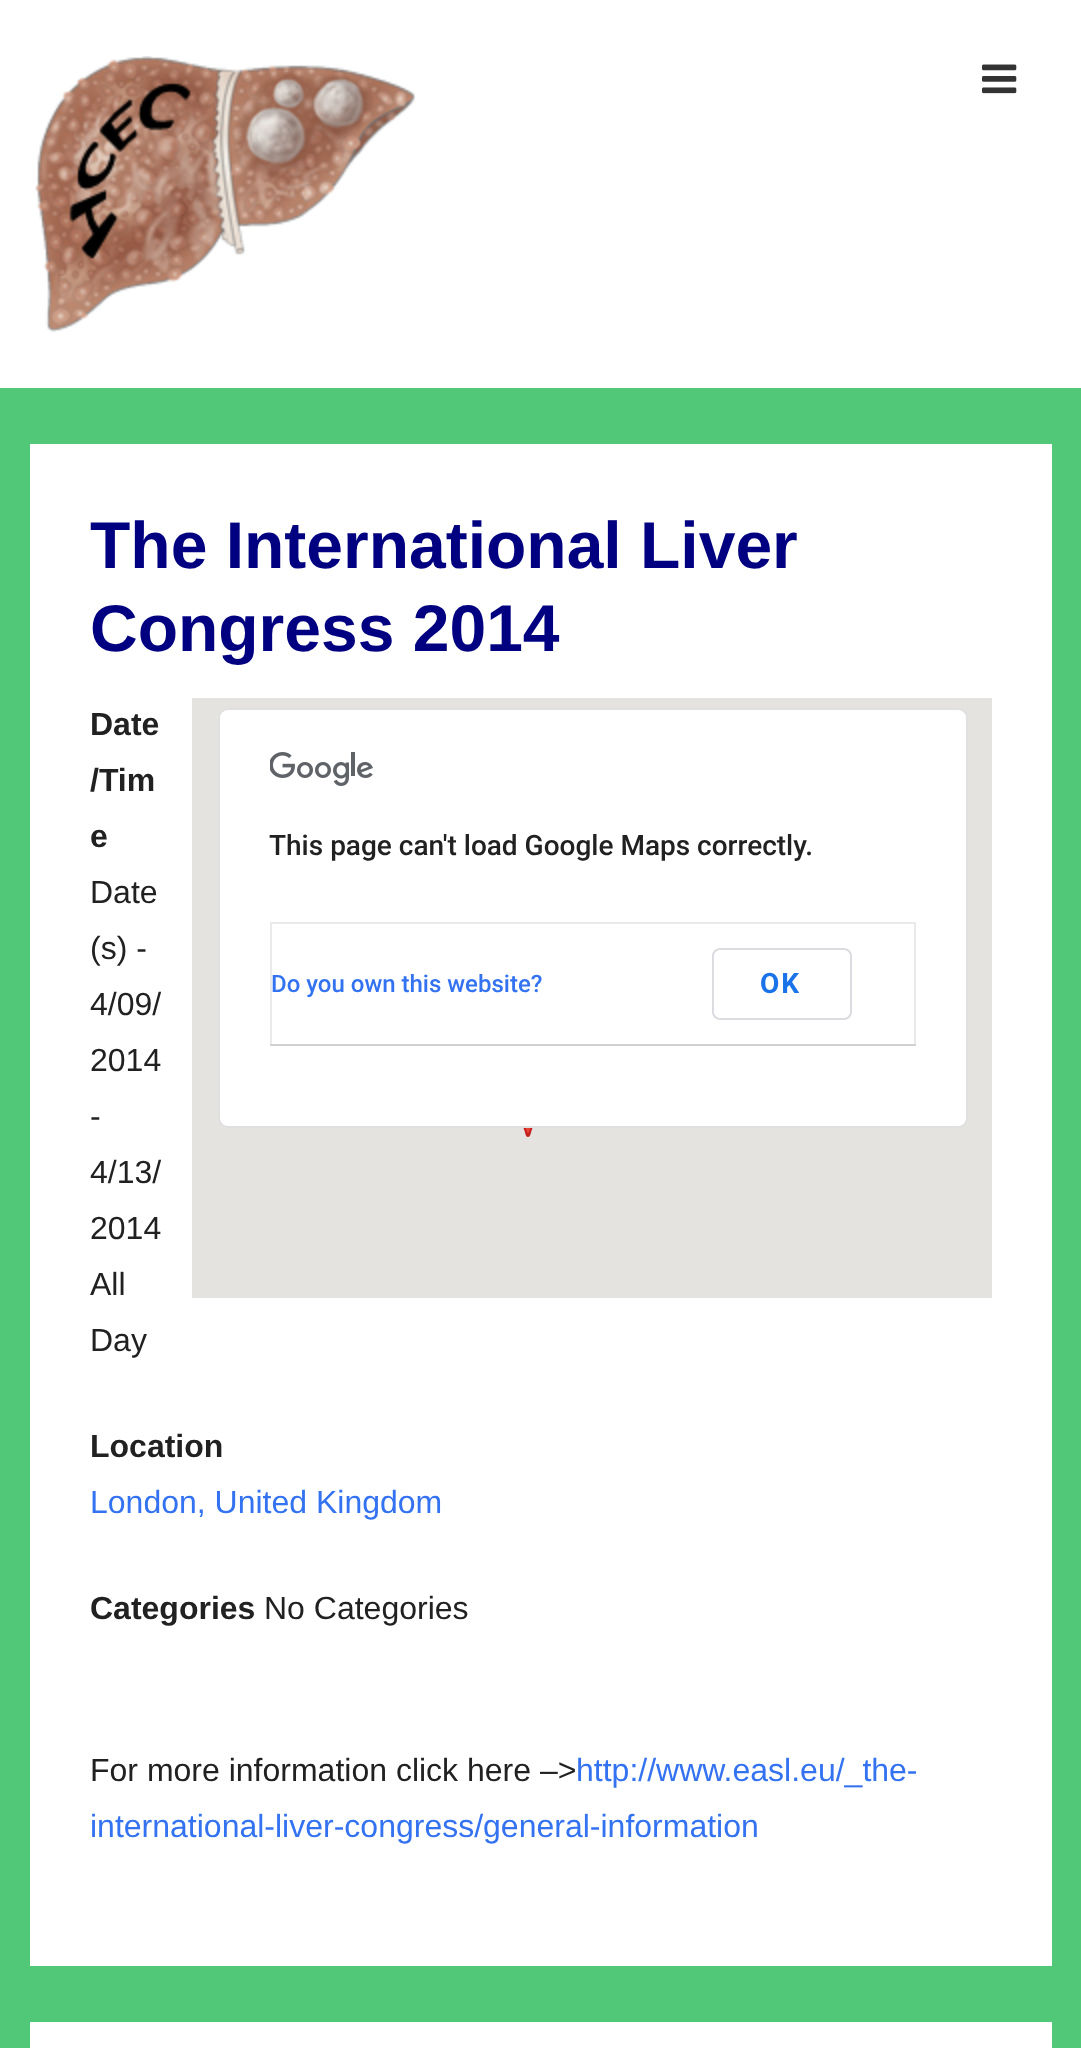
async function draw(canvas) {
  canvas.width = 1081
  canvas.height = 2048
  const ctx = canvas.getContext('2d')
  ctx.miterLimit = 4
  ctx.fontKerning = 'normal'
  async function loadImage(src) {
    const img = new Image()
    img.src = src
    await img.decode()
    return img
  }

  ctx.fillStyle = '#50c878'
  ctx.fillRect(0, 0, 1081, 2048)
  ctx.fillStyle = '#fff'
  ctx.fillRect(0, 0, 1081, 388)
  ctx.drawImage(await loadImage('image0.png'), 35, 56, 381, 276)
  ctx.drawImage(await loadImage('image1.png'), 982, 64, 35, 30)
  ctx.fillRect(30, 444, 1022, 1522)
  ctx.font = 'bold 66px Liberation Sans'
  ctx.fillStyle = '#000080'
  ctx.fillText('The International Liver', 90, 568)
  ctx.fillText('Congress 2014', 90, 651)
  ctx.font = 'bold 32px Liberation Sans'
  ctx.fillStyle = '#212121'
  ctx.fillText('Date', 90, 735)
  ctx.fillText('/Tim', 90, 791)
  ctx.fillText('e', 90, 847)
  ctx.font = '32px Liberation Sans'
  ctx.fillText('Date', 90, 903)
  ctx.fillText('(s) -', 90, 959)
  ctx.fillText('4/09/', 90, 1015)
  ctx.fillText('2014', 90, 1071)
  ctx.fillText('-', 90, 1127)
  ctx.fillText('4/13/', 90, 1183)
  ctx.fillText('2014', 90, 1239)
  ctx.fillText('All', 90, 1295)
  ctx.fillText('Day', 90, 1351)
  ctx.fillStyle = '#e5e3df'
  ctx.fillRect(192, 698, 800, 600)
  ctx.drawImage(await loadImage('image2.png'), 523, 1128, 10, 9)
  ctx.fillStyle = '#fff'
  ctx.beginPath()
  ctx.roundRect(218, 708, 750, 420, 10)
  ctx.fill()
  ctx.beginPath()
  ctx.roundRect(219, 709, 748, 418, 9)
  ctx.strokeStyle = '#0000001f'
  ctx.lineWidth = 2
  ctx.stroke()
  ctx.drawImage(await loadImage('image3.png'), 270, 752, 103, 34)
  ctx.font = '500 28px Roboto'
  ctx.fillStyle = '#212121'
  ctx.fillText('This page can\'t load Google Maps correctly.', 269, 855)
  ctx.fillStyle = '#eaeaea'
  ctx.fillRect(270, 922, 646, 2)
  ctx.fillRect(914, 922, 2, 124)
  ctx.fillRect(270, 922, 2, 124)
  ctx.font = '500 24px Roboto'
  ctx.fillStyle = '#3372f0'
  ctx.fillText('Do you own this website?', 271, 992)
  ctx.fillStyle = '#d1d1d1'
  ctx.fillRect(270, 1044, 646, 2)
  ctx.beginPath()
  ctx.roundRect(713, 949, 138, 70, 7)
  ctx.strokeStyle = '#dadce0'
  ctx.stroke()
  ctx.letterSpacing = '2px'
  ctx.font = 'bold 28px Roboto'
  ctx.fillStyle = '#1a73e8'
  ctx.fillText('OK', 760, 993)
  ctx.letterSpacing = '0px'
  ctx.font = 'bold 32px Liberation Sans'
  ctx.fillStyle = '#212121'
  ctx.fillText('Location', 90, 1457)
  ctx.font = '32px Liberation Sans'
  ctx.fillStyle = '#3372f0'
  ctx.fillText('London, United Kingdom', 90, 1513)
  ctx.font = 'bold 32px Liberation Sans'
  ctx.fillStyle = '#212121'
  ctx.fillText('Categories', 90, 1619)
  ctx.font = '32px Liberation Sans'
  ctx.fillText('No Categories', 264, 1619)
  ctx.fillText('For more information click here –>', 90, 1781)
  ctx.fillStyle = '#3372f0'
  ctx.fillText('http://www.easl.eu/_the-', 576, 1781)
  ctx.fillText('international-liver-congress/general-information', 90, 1837)
  ctx.fillStyle = '#fff'
  ctx.fillRect(30, 2022, 1022, 26)
}

draw(document.querySelector('canvas'))
